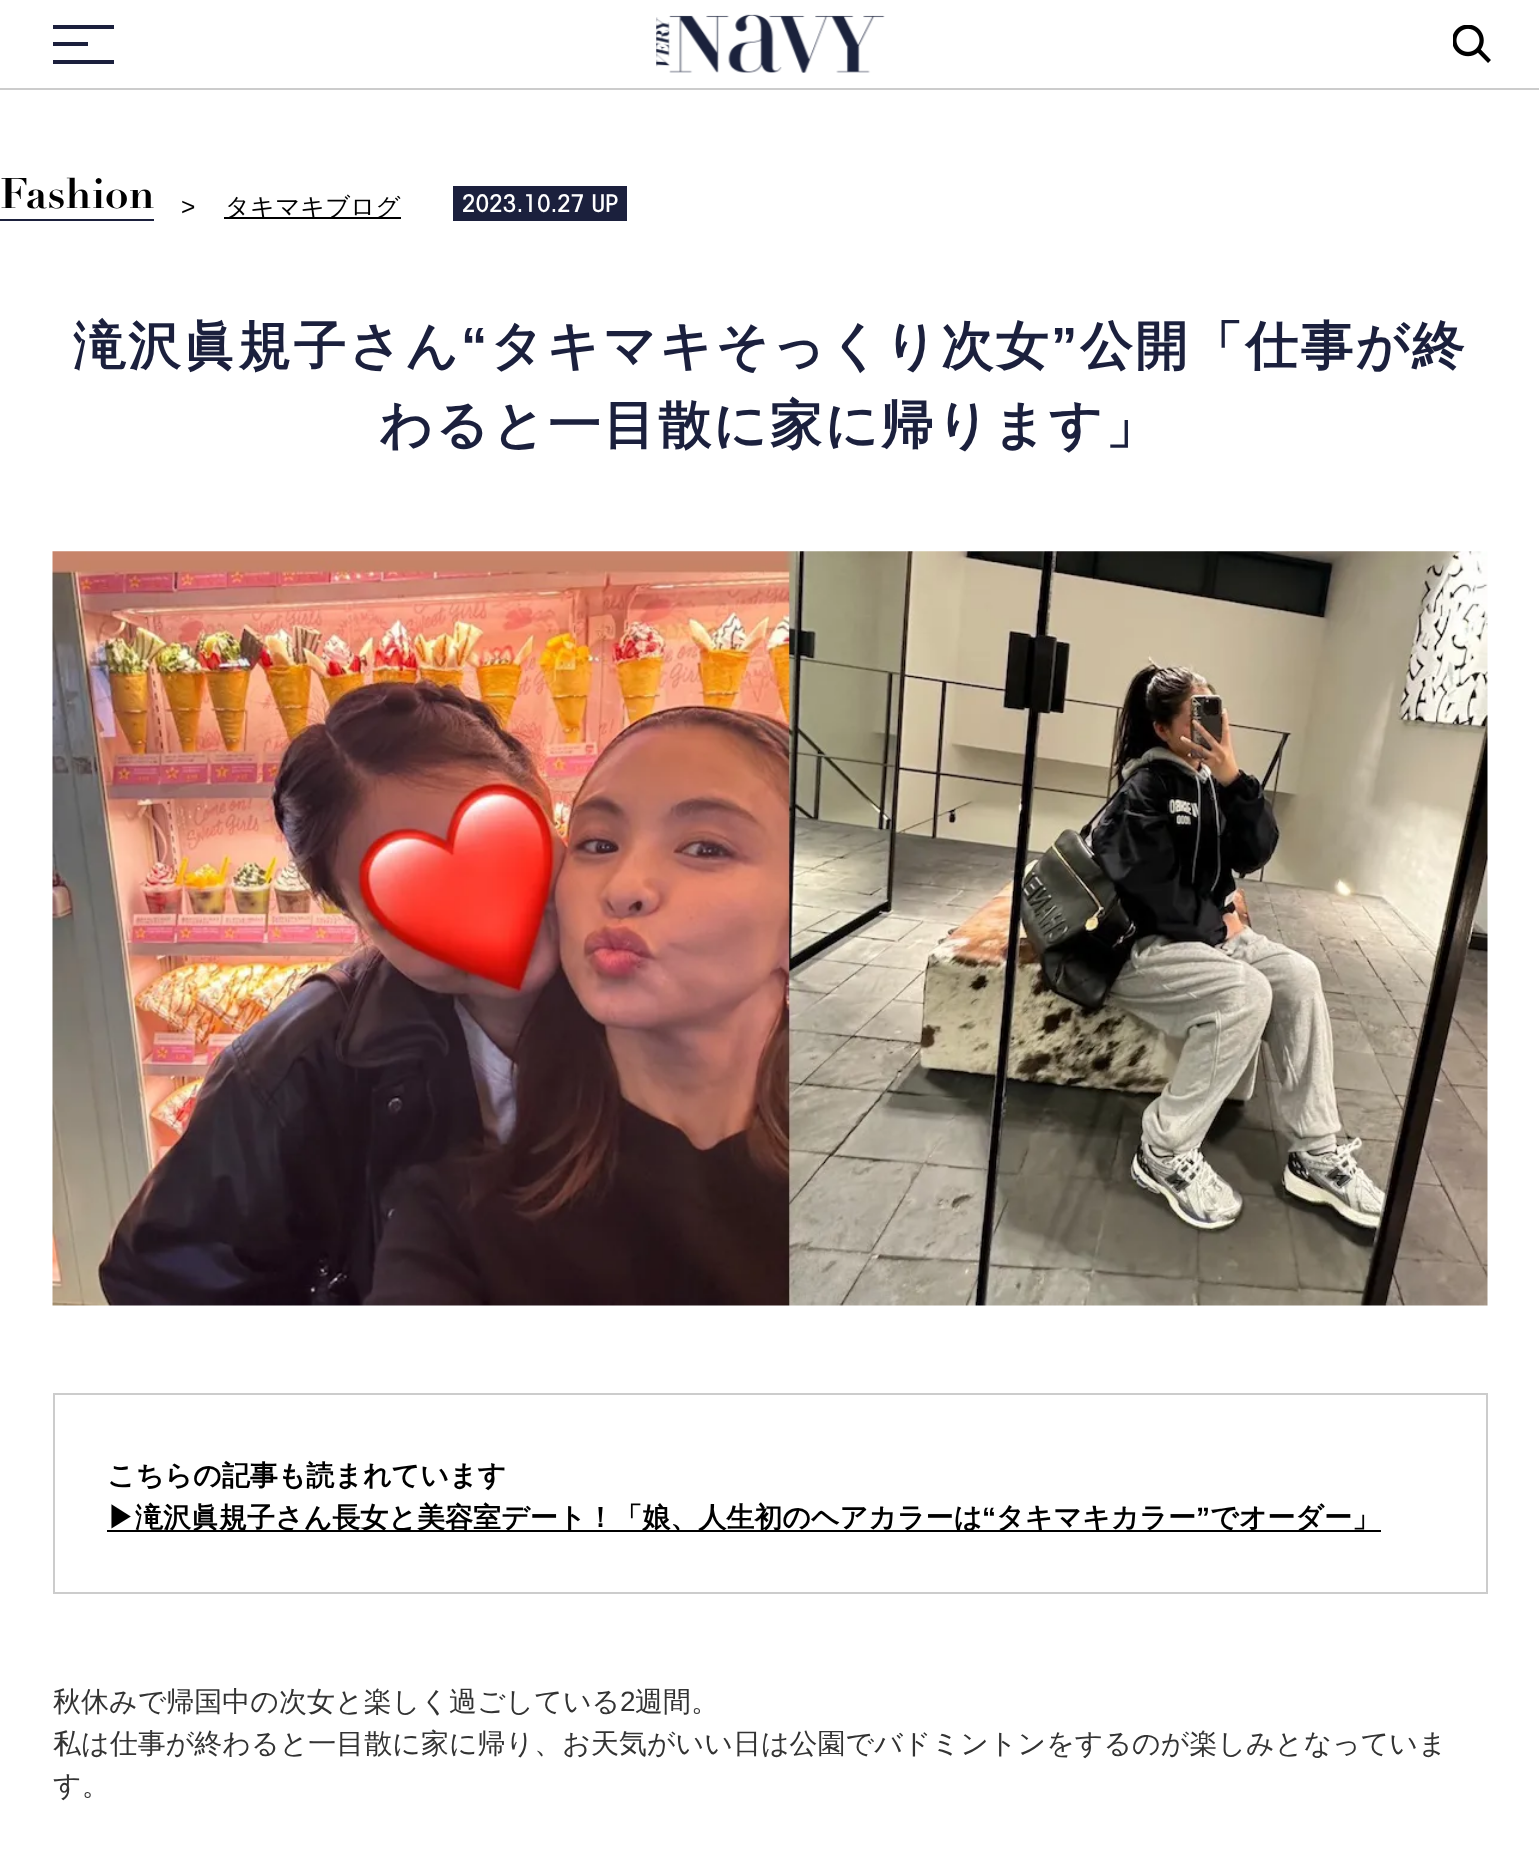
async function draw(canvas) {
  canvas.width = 1539
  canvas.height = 1850
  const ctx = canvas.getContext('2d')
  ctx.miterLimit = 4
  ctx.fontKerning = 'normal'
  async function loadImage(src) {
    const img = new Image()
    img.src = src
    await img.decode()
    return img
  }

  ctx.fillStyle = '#fff'
  ctx.fillRect(0, 0, 1539, 1850)
  ctx.fillStyle = '#ccc'
  ctx.fillRect(0, 88, 1539, 2)
  ctx.fillStyle = '#1b203d'
  ctx.fillRect(53, 25, 61, 4)
  ctx.fillRect(53, 42, 35, 4)
  ctx.fillRect(53, 60, 61, 4)
  ctx.drawImage(await loadImage('image0.png'), 656, 14, 229, 59)
  ctx.drawImage(await loadImage('image1.png'), 1453, 25, 38, 38)
  ctx.font = 'bold 42px Didot'
  ctx.fillStyle = '#000'
  ctx.fillText('Fashion', 0, 208)
  ctx.fillStyle = '#1b203d'
  ctx.fillRect(0, 219, 154, 2)
  ctx.font = '24.5px Liberation Sans'
  ctx.fillStyle = '#000'
  ctx.fillText('>', 181, 215)
  ctx.fillRect(224, 217, 177, 2)
  ctx.font = '500 24.5px WenQuanYi Zen Hei'
  ctx.fillText('タキマキブログ', 225, 215)
  ctx.fillStyle = '#1b203d'
  ctx.fillRect(453, 186, 174, 35)
  ctx.font = '500 24.5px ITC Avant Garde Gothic'
  ctx.fillStyle = '#fff'
  ctx.fillText('2023.10.27 UP', 462, 212)
  ctx.letterSpacing = '2.6px'
  ctx.font = 'bold 52.5px WenQuanYi Zen Hei'
  ctx.fillStyle = '#1b203d'
  ctx.fillText('滝沢眞規子さん', 73, 364)
  ctx.font = 'bold 52.5px Liberation Sans'
  ctx.fillText('“', 461, 364)
  ctx.font = 'bold 52.5px WenQuanYi Zen Hei'
  ctx.fillText('タキマキそっくり次女', 490, 364)
  ctx.font = 'bold 52.5px Liberation Sans'
  ctx.fillText('”', 1051, 364)
  ctx.font = 'bold 52.5px WenQuanYi Zen Hei'
  ctx.fillText('公開「仕事が終', 1080, 364)
  ctx.fillText('わると一目散に家に帰ります」', 379, 443)
  ctx.drawImage(await loadImage('image2.png'), 52, 551, 1436, 755)
  ctx.strokeStyle = '#ccc'
  ctx.lineWidth = 2
  ctx.strokeRect(54, 1394, 1433, 199)
  ctx.letterSpacing = '0px'
  ctx.font = 'bold 28px WenQuanYi Zen Hei'
  ctx.fillStyle = '#000'
  ctx.fillText('こちらの記事も読まれています', 107, 1485)
  ctx.fillRect(107, 1530, 1274, 2)
  ctx.fillText('▶︎滝沢眞規子さん長女と美容室デート！「娘、人生初のヘアカラーは', 107, 1527)
  ctx.font = 'bold 28px Liberation Sans'
  ctx.fillText('“', 982, 1527)
  ctx.font = 'bold 28px WenQuanYi Zen Hei'
  ctx.fillText('タキマキカラー', 996, 1527)
  ctx.font = 'bold 28px Liberation Sans'
  ctx.fillText('”', 1196, 1527)
  ctx.font = 'bold 28px WenQuanYi Zen Hei'
  ctx.fillText('でオーダー」', 1210, 1527)
  ctx.font = '500 28px WenQuanYi Zen Hei'
  ctx.fillStyle = '#333'
  ctx.fillText('秋休みで帰国中の次女と楽しく過ごしている', 53, 1711)
  ctx.font = '28px Liberation Sans'
  ctx.fillText('2', 620, 1711)
  ctx.font = '500 28px WenQuanYi Zen Hei'
  ctx.fillText('週間。', 635, 1711)
  ctx.fillText('私は仕事が終わると一目散に家に帰り、お天気がいい日は公園でバドミントンをするのが楽しみとなっていま', 53, 1753)
  ctx.fillText('す。', 53, 1795)
}

draw(document.querySelector('canvas'))
